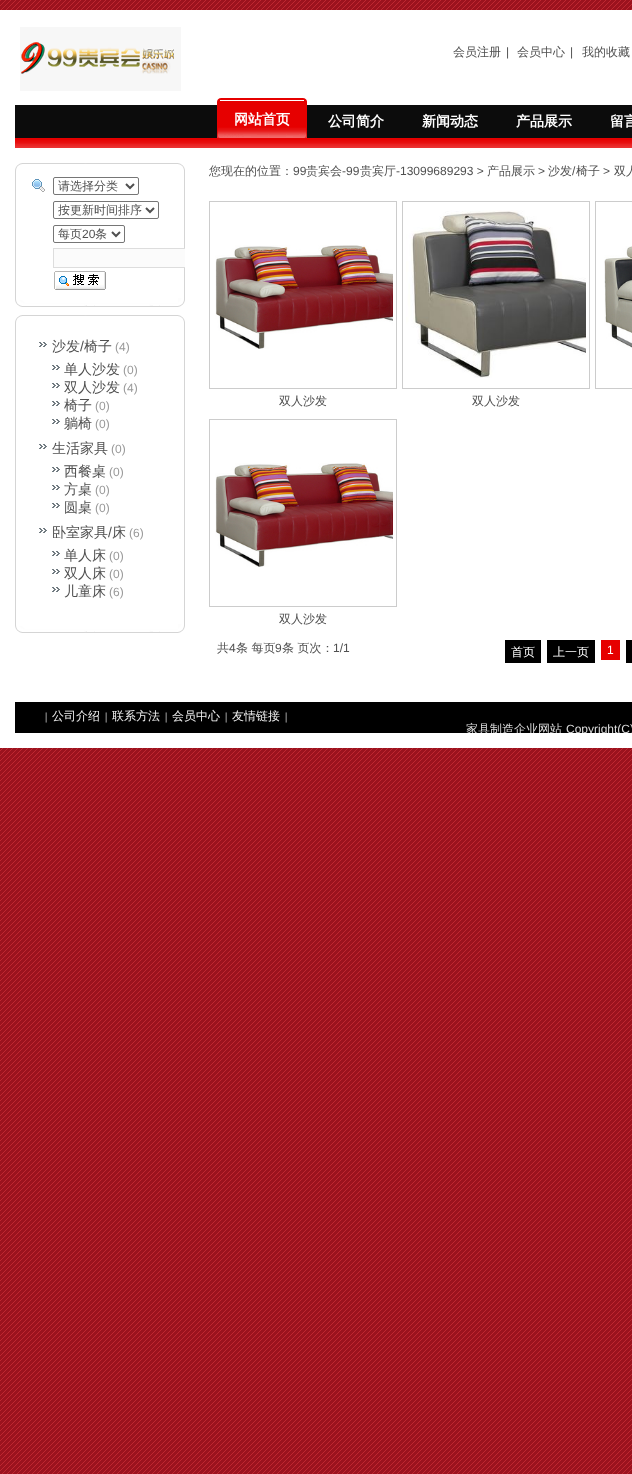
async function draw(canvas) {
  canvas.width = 632
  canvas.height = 1474
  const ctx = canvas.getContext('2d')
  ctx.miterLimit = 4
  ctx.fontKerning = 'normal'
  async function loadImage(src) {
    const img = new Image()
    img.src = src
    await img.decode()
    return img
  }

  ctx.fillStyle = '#fff'
  ctx.fillRect(0, 0, 632, 1474)
  ctx.drawImage(await loadImage('image0.png'), 0, 0, 632, 1474)
  ctx.fillRect(0, 10, 632, 738)
  ctx.drawImage(await loadImage('image1.png'), 20, 27, 161, 64)
  ctx.font = '500 12px WenQuanYi Zen Hei'
  ctx.fillStyle = '#505050'
  ctx.fillText('会员注册', 453, 56)
  ctx.font = '12px Liberation Sans'
  ctx.fillText('|', 506, 56)
  ctx.font = '500 12px WenQuanYi Zen Hei'
  ctx.fillText('会员中心', 517, 56)
  ctx.font = '12px Liberation Sans'
  ctx.fillText('|', 570, 56)
  ctx.font = '500 12px WenQuanYi Zen Hei'
  ctx.fillText('我的收藏', 582, 56)
  ctx.drawImage(await loadImage('image2.png'), 15, 105, 617, 43)
  ctx.drawImage(await loadImage('image3.png'), 217, 98, 90, 40)
  ctx.font = 'bold 14px WenQuanYi Zen Hei'
  ctx.fillStyle = '#fff'
  ctx.fillText('网站首页', 234, 124)
  ctx.fillText('公司简介', 328, 126)
  ctx.fillText('新闻动态', 422, 126)
  ctx.fillText('产品展示', 516, 126)
  ctx.fillText('留言', 610, 126)
  ctx.font = '500 12px WenQuanYi Zen Hei'
  ctx.fillStyle = '#505050'
  ctx.fillText('您现在的位置：', 209, 175)
  ctx.font = '12px Liberation Sans'
  ctx.fillText('99', 293, 175)
  ctx.font = '500 12px WenQuanYi Zen Hei'
  ctx.fillText('贵宾会', 306, 175)
  ctx.font = '12px Liberation Sans'
  ctx.fillText('-99', 342, 175)
  ctx.font = '500 12px WenQuanYi Zen Hei'
  ctx.fillText('贵宾厅', 360, 175)
  ctx.font = '12px Liberation Sans'
  ctx.fillText('-13099689293 >', 396, 175)
  ctx.font = '500 12px WenQuanYi Zen Hei'
  ctx.fillText('产品展示', 487, 175)
  ctx.font = '12px Liberation Sans'
  ctx.fillText('>', 538, 175)
  ctx.font = '500 12px WenQuanYi Zen Hei'
  ctx.fillText('沙发', 548, 175)
  ctx.font = '12px Liberation Sans'
  ctx.fillText('/', 572, 175)
  ctx.font = '500 12px WenQuanYi Zen Hei'
  ctx.fillText('椅子', 576, 175)
  ctx.font = '12px Liberation Sans'
  ctx.fillText('>', 603, 175)
  ctx.font = '500 12px WenQuanYi Zen Hei'
  ctx.fillText('双人', 614, 175)
  ctx.fillStyle = '#d5d5d5'
  ctx.fillRect(15, 163, 1, 135)
  ctx.fillRect(184, 163, 1, 135)
  ctx.drawImage(await loadImage('image4.png'), 15, 163, 163, 8)
  ctx.drawImage(await loadImage('image5.png'), 178, 163, 7, 8)
  ctx.drawImage(await loadImage('image6.png'), 32, 179, 13, 13)
  ctx.beginPath()
  ctx.roundRect(53.5, 177.5, 85, 17, 1.5)
  ctx.strokeStyle = '#767676'
  ctx.stroke()
  ctx.beginPath()
  ctx.moveTo(126, 184)
  ctx.lineTo(130, 188)
  ctx.lineTo(134, 184)
  ctx.strokeStyle = '#505050'
  ctx.lineWidth = 2
  ctx.stroke()
  ctx.fillStyle = '#505050'
  ctx.fillText('请选择分类', 58, 190)
  ctx.beginPath()
  ctx.roundRect(53.5, 201.5, 105, 17, 1.5)
  ctx.strokeStyle = '#767676'
  ctx.lineWidth = 1
  ctx.stroke()
  ctx.beginPath()
  ctx.moveTo(146, 208)
  ctx.lineTo(150, 212)
  ctx.lineTo(154, 208)
  ctx.strokeStyle = '#505050'
  ctx.lineWidth = 2
  ctx.stroke()
  ctx.fillText('按更新时间排序', 58, 214)
  ctx.beginPath()
  ctx.roundRect(53.5, 225.5, 71, 17, 1.5)
  ctx.strokeStyle = '#767676'
  ctx.lineWidth = 1
  ctx.stroke()
  ctx.beginPath()
  ctx.moveTo(112, 232)
  ctx.lineTo(116, 236)
  ctx.lineTo(120, 232)
  ctx.strokeStyle = '#505050'
  ctx.lineWidth = 2
  ctx.stroke()
  ctx.fillText('每页', 58, 238)
  ctx.font = '12px Liberation Sans'
  ctx.fillText('20', 82, 238)
  ctx.font = '500 12px WenQuanYi Zen Hei'
  ctx.fillText('条', 95, 238)
  ctx.fillStyle = '#fbfbfb'
  ctx.fillRect(54, 249, 131, 18)
  ctx.save()
  ctx.beginPath()
  ctx.rect(15, 163, 170, 144)
  ctx.clip()
  ctx.strokeStyle = '#ddd'
  ctx.lineWidth = 1
  ctx.strokeRect(53.5, 248.5, 134, 19)
  ctx.restore()
  ctx.drawImage(await loadImage('image7.png'), 54, 271, 52, 19)
  ctx.drawImage(await loadImage('image8.png'), 15, 298, 163, 9)
  ctx.drawImage(await loadImage('image9.png'), 178, 298, 7, 9)
  ctx.fillStyle = '#d5d5d5'
  ctx.fillRect(15, 315, 1, 309)
  ctx.fillRect(184, 315, 1, 309)
  ctx.drawImage(await loadImage('image4.png'), 15, 315, 163, 8)
  ctx.drawImage(await loadImage('image5.png'), 178, 315, 7, 8)
  ctx.drawImage(await loadImage('image10.png'), 39, 342, 8, 5)
  ctx.font = '500 14px WenQuanYi Zen Hei'
  ctx.fillStyle = '#505050'
  ctx.fillText('沙发', 52, 351)
  ctx.font = '14px Liberation Sans'
  ctx.fillText('/', 80, 351)
  ctx.font = '500 14px WenQuanYi Zen Hei'
  ctx.fillText('椅子', 84, 351)
  ctx.font = '12px Liberation Sans'
  ctx.fillStyle = '#999'
  ctx.fillText('(4)', 115, 351)
  ctx.drawImage(await loadImage('image10.png'), 52, 365, 8, 5)
  ctx.font = '500 14px WenQuanYi Zen Hei'
  ctx.fillStyle = '#505050'
  ctx.fillText('单人沙发', 64, 374)
  ctx.font = '12px Liberation Sans'
  ctx.fillStyle = '#999'
  ctx.fillText('(0)', 123, 374)
  ctx.drawImage(await loadImage('image10.png'), 52, 383, 8, 5)
  ctx.font = '500 14px WenQuanYi Zen Hei'
  ctx.fillStyle = '#505050'
  ctx.fillText('双人沙发', 64, 392)
  ctx.font = '12px Liberation Sans'
  ctx.fillStyle = '#999'
  ctx.fillText('(4)', 123, 392)
  ctx.drawImage(await loadImage('image10.png'), 52, 401, 8, 5)
  ctx.font = '500 14px WenQuanYi Zen Hei'
  ctx.fillStyle = '#505050'
  ctx.fillText('椅子', 64, 410)
  ctx.font = '12px Liberation Sans'
  ctx.fillStyle = '#999'
  ctx.fillText('(0)', 95, 410)
  ctx.drawImage(await loadImage('image10.png'), 52, 419, 8, 5)
  ctx.font = '500 14px WenQuanYi Zen Hei'
  ctx.fillStyle = '#505050'
  ctx.fillText('躺椅', 64, 428)
  ctx.font = '12px Liberation Sans'
  ctx.fillStyle = '#999'
  ctx.fillText('(0)', 95, 428)
  ctx.drawImage(await loadImage('image10.png'), 39, 444, 8, 5)
  ctx.font = '500 14px WenQuanYi Zen Hei'
  ctx.fillStyle = '#505050'
  ctx.fillText('生活家具', 52, 453)
  ctx.font = '12px Liberation Sans'
  ctx.fillStyle = '#999'
  ctx.fillText('(0)', 111, 453)
  ctx.drawImage(await loadImage('image10.png'), 52, 467, 8, 5)
  ctx.font = '500 14px WenQuanYi Zen Hei'
  ctx.fillStyle = '#505050'
  ctx.fillText('西餐桌', 64, 476)
  ctx.font = '12px Liberation Sans'
  ctx.fillStyle = '#999'
  ctx.fillText('(0)', 109, 476)
  ctx.drawImage(await loadImage('image10.png'), 52, 485, 8, 5)
  ctx.font = '500 14px WenQuanYi Zen Hei'
  ctx.fillStyle = '#505050'
  ctx.fillText('方桌', 64, 494)
  ctx.font = '12px Liberation Sans'
  ctx.fillStyle = '#999'
  ctx.fillText('(0)', 95, 494)
  ctx.drawImage(await loadImage('image10.png'), 52, 503, 8, 5)
  ctx.font = '500 14px WenQuanYi Zen Hei'
  ctx.fillStyle = '#505050'
  ctx.fillText('圆桌', 64, 512)
  ctx.font = '12px Liberation Sans'
  ctx.fillStyle = '#999'
  ctx.fillText('(0)', 95, 512)
  ctx.drawImage(await loadImage('image10.png'), 39, 528, 8, 5)
  ctx.font = '500 14px WenQuanYi Zen Hei'
  ctx.fillStyle = '#505050'
  ctx.fillText('卧室家具', 52, 537)
  ctx.font = '14px Liberation Sans'
  ctx.fillText('/', 108, 537)
  ctx.font = '500 14px WenQuanYi Zen Hei'
  ctx.fillText('床', 112, 537)
  ctx.font = '12px Liberation Sans'
  ctx.fillStyle = '#999'
  ctx.fillText('(6)', 129, 537)
  ctx.drawImage(await loadImage('image10.png'), 52, 551, 8, 5)
  ctx.font = '500 14px WenQuanYi Zen Hei'
  ctx.fillStyle = '#505050'
  ctx.fillText('单人床', 64, 560)
  ctx.font = '12px Liberation Sans'
  ctx.fillStyle = '#999'
  ctx.fillText('(0)', 109, 560)
  ctx.drawImage(await loadImage('image10.png'), 52, 569, 8, 5)
  ctx.font = '500 14px WenQuanYi Zen Hei'
  ctx.fillStyle = '#505050'
  ctx.fillText('双人床', 64, 578)
  ctx.font = '12px Liberation Sans'
  ctx.fillStyle = '#999'
  ctx.fillText('(0)', 109, 578)
  ctx.drawImage(await loadImage('image10.png'), 52, 587, 8, 5)
  ctx.font = '500 14px WenQuanYi Zen Hei'
  ctx.fillStyle = '#505050'
  ctx.fillText('儿童床', 64, 596)
  ctx.font = '12px Liberation Sans'
  ctx.fillStyle = '#999'
  ctx.fillText('(6)', 109, 596)
  ctx.drawImage(await loadImage('image8.png'), 15, 624, 163, 9)
  ctx.drawImage(await loadImage('image9.png'), 178, 624, 7, 9)
  ctx.strokeStyle = '#ccc'
  ctx.lineWidth = 1
  ctx.strokeRect(595.5, 201.5, 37, 187)
  ctx.drawImage(await loadImage('image11.png'), 604, 246, 28, 102)
  ctx.strokeRect(209.5, 201.5, 187, 187)
  ctx.drawImage(await loadImage('image12.png'), 215, 245, 178, 104)
  ctx.font = '500 12px WenQuanYi Zen Hei'
  ctx.fillStyle = '#505050'
  ctx.fillText('双人沙发', 279, 405)
  ctx.strokeRect(402.5, 201.5, 187, 187)
  ctx.drawImage(await loadImage('image13.png'), 406, 210, 180, 168)
  ctx.fillText('双人沙发', 472, 405)
  ctx.strokeRect(209.5, 419.5, 187, 187)
  ctx.drawImage(await loadImage('image12.png'), 215, 463, 178, 104)
  ctx.fillText('双人沙发', 279, 623)
  ctx.fillText('共', 217, 652)
  ctx.font = '12px Liberation Sans'
  ctx.fillText('4', 229, 652)
  ctx.font = '500 12px WenQuanYi Zen Hei'
  ctx.fillText('条 每页', 236, 652)
  ctx.font = '12px Liberation Sans'
  ctx.fillText('9', 275, 652)
  ctx.font = '500 12px WenQuanYi Zen Hei'
  ctx.fillText('条 页次：', 282, 652)
  ctx.font = '12px Liberation Sans'
  ctx.fillText('1/1', 333, 652)
  ctx.fillStyle = '#000'
  ctx.fillRect(505, 640, 36, 23)
  ctx.font = '500 12px WenQuanYi Zen Hei'
  ctx.fillStyle = '#fff'
  ctx.fillText('首页', 511, 656)
  ctx.fillStyle = '#000'
  ctx.fillRect(547, 640, 48, 23)
  ctx.fillStyle = '#fff'
  ctx.fillText('上一页', 553, 656)
  ctx.fillStyle = '#e60000'
  ctx.fillRect(601, 640, 19, 20)
  ctx.font = '12px Liberation Sans'
  ctx.fillStyle = '#fff'
  ctx.fillText('1', 607, 654)
  ctx.fillStyle = '#000'
  ctx.fillRect(626, 640, 6, 23)
  ctx.fillRect(15, 702, 617, 31)
  ctx.font = '11px Liberation Serif'
  ctx.fillStyle = '#f0f0f0'
  ctx.fillText('|', 45, 720)
  ctx.font = '500 12px WenQuanYi Zen Hei'
  ctx.fillText('公司介绍', 52, 720)
  ctx.font = '11px Liberation Serif'
  ctx.fillText('|', 105, 720)
  ctx.font = '500 12px WenQuanYi Zen Hei'
  ctx.fillText('联系方法', 112, 720)
  ctx.font = '11px Liberation Serif'
  ctx.fillText('|', 165, 720)
  ctx.font = '500 12px WenQuanYi Zen Hei'
  ctx.fillText('会员中心', 172, 720)
  ctx.font = '11px Liberation Serif'
  ctx.fillText('|', 225, 720)
  ctx.font = '500 12px WenQuanYi Zen Hei'
  ctx.fillText('友情链接', 232, 720)
  ctx.font = '11px Liberation Serif'
  ctx.fillText('|', 285, 720)
  ctx.save()
  ctx.beginPath()
  ctx.rect(441, 709, 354, 24)
  ctx.clip()
  ctx.font = '500 12px WenQuanYi Zen Hei'
  ctx.fillStyle = '#dcdcdc'
  ctx.fillText('家具制造企业网站', 466, 733)
  ctx.font = '12px Liberation Sans'
  ctx.fillText('Copyright(C)', 566, 733)
  ctx.restore()
}

draw(document.querySelector('canvas'))
